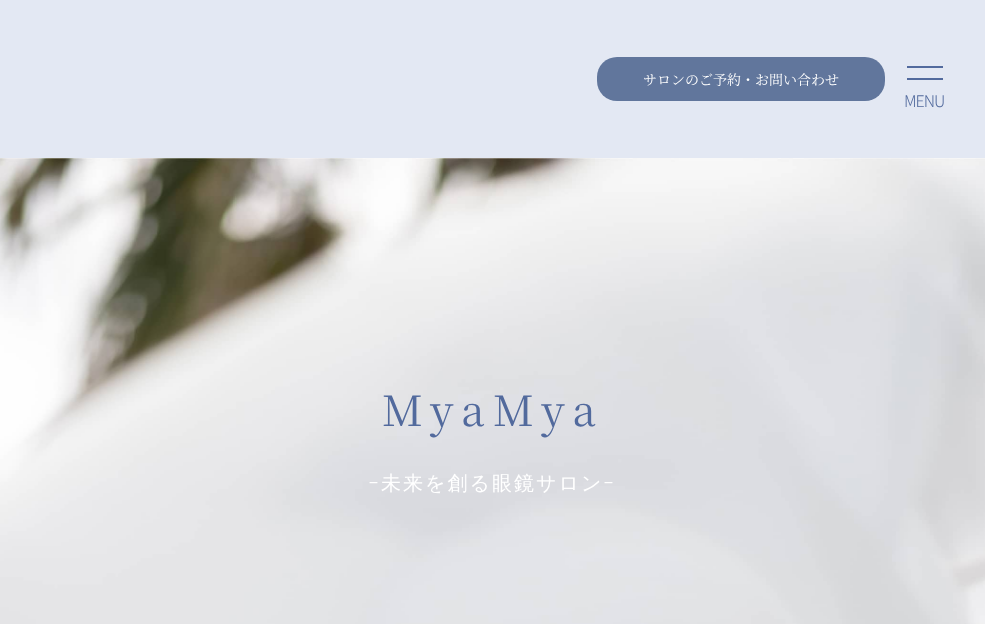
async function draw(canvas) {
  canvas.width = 985
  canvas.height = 624
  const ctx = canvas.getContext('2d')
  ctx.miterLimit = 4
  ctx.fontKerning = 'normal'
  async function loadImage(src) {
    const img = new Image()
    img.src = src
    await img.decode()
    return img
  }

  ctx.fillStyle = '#e3e8f3'
  ctx.fillRect(0, 0, 985, 624)
  ctx.fillStyle = '#61769c'
  ctx.beginPath()
  ctx.roundRect(597, 57, 288, 44, 20)
  ctx.fill()
  ctx.font = '14px Noto Serif JP'
  ctx.fillStyle = '#fff'
  ctx.fillText('サロンのご予約・お問い合わせ', 643, 85)
  ctx.fillStyle = '#526a9d'
  ctx.fillRect(907, 78, 36, 2)
  ctx.fillRect(907, 66, 36, 2)
  ctx.letterSpacing = '-1px'
  ctx.font = '300 16px Noto Sans JP'
  ctx.fillText('MENU', 904, 107)
  ctx.drawImage(await loadImage('image0.png'), 0, 158, 985, 466)
  ctx.letterSpacing = '8.5px'
  ctx.font = '42px Noto Serif JP'
  ctx.fillText('MyaMya', 382, 426)
  ctx.letterSpacing = '2px'
  ctx.font = '300 20px Poppins'
  ctx.fillStyle = '#fff'
  ctx.fillText('-', 369, 490)
  ctx.font = '500 20px WenQuanYi Zen Hei'
  ctx.fillText('未来を創る眼鏡サロン', 381, 490)
  ctx.font = '300 20px Poppins'
  ctx.fillText('-', 604, 490)
}

draw(document.querySelector('canvas'))
